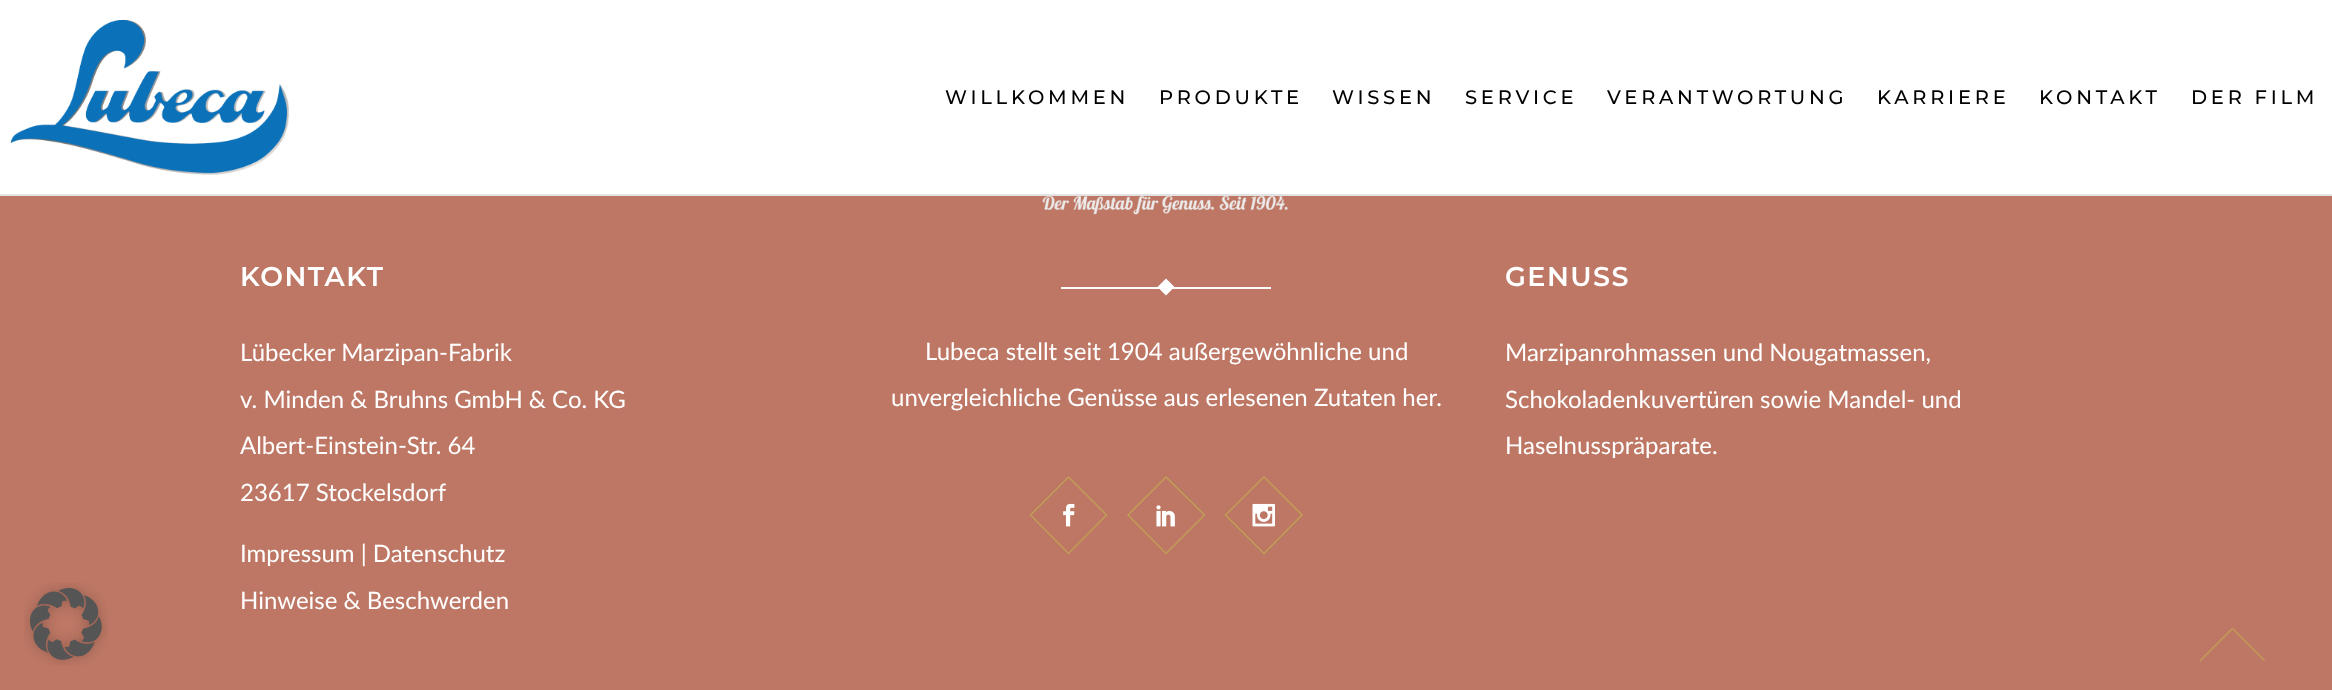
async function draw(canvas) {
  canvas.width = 2332
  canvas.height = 690
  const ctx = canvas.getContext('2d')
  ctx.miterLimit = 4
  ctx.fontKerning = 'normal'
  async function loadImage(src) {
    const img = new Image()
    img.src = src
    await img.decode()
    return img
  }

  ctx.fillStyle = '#bd7764'
  ctx.fillRect(0, 0, 2332, 690)
  ctx.fillStyle = '#fff'
  ctx.fillRect(0, 0, 2332, 194)
  ctx.fillStyle = '#e3e3e3'
  ctx.fillRect(0, 194, 2332, 2)
  ctx.drawImage(await loadImage('image0.png'), 10, 19, 279, 156)
  ctx.letterSpacing = '3.75px'
  ctx.font = '500 19.5px Montserrat'
  ctx.fillStyle = '#000'
  ctx.fillText('WILLKOMMEN', 945, 104)
  ctx.fillText('PRODUKTE', 1159, 104)
  ctx.fillText('WISSEN', 1332, 104)
  ctx.fillText('SERVICE', 1465, 104)
  ctx.fillText('VERANTWORTUNG', 1607, 104)
  ctx.fillText('KARRIERE', 1877, 104)
  ctx.fillText('KONTAKT', 2039, 104)
  ctx.fillText('DER FILM', 2191, 104)
  ctx.letterSpacing = '1.5px'
  ctx.font = '600 27px Montserrat'
  ctx.fillStyle = '#fff'
  ctx.fillText('KONTAKT', 240, 286)
  ctx.letterSpacing = '0px'
  ctx.font = '24px Lato'
  ctx.fillText('Lübecker Marzipan-Fabrik', 240, 361)
  ctx.fillText('v. Minden & Bruhns GmbH & Co. KG', 240, 408)
  ctx.fillText('Albert-Einstein-Str. 64', 240, 454)
  ctx.fillText('23617 Stockelsdorf', 240, 501)
  ctx.fillText('Impressum | Datenschutz', 240, 562)
  ctx.fillText('Hinweise & Beschwerden', 240, 609)
  ctx.drawImage(await loadImage('image1.png'), 1042, 196, 246, 19)
  ctx.fillRect(1061, 287, 210, 2)
  ctx.beginPath()
  ctx.moveTo(1166, 278.5)
  ctx.lineTo(1174.5, 287)
  ctx.lineTo(1166, 295.5)
  ctx.lineTo(1157.5, 287)
  ctx.closePath()
  ctx.fill()
  ctx.fillText('Lubeca stellt seit 1904 außergewöhnliche und', 925, 360)
  ctx.fillText('unvergleichliche Genüsse aus erlesenen Zutaten her.', 891, 406)
  ctx.beginPath()
  ctx.moveTo(1068.5, 477)
  ctx.lineTo(1106.5, 515)
  ctx.lineTo(1068.5, 553.5)
  ctx.lineTo(1030.5, 515)
  ctx.closePath()
  ctx.strokeStyle = '#c19d56'
  ctx.lineWidth = 1.5
  ctx.stroke()
  ctx.drawImage(await loadImage('image2.png'), 1063, 503, 12, 24)
  ctx.beginPath()
  ctx.moveTo(1166, 477)
  ctx.lineTo(1204.5, 515)
  ctx.lineTo(1166, 553.5)
  ctx.lineTo(1128, 515)
  ctx.closePath()
  ctx.stroke()
  ctx.drawImage(await loadImage('image3.png'), 1156, 505, 19, 22)
  ctx.beginPath()
  ctx.moveTo(1264, 477)
  ctx.lineTo(1302, 515)
  ctx.lineTo(1264, 553.5)
  ctx.lineTo(1225.5, 515)
  ctx.closePath()
  ctx.stroke()
  ctx.drawImage(await loadImage('image4.png'), 1252, 503, 23, 24)
  ctx.letterSpacing = '1.5px'
  ctx.font = '600 27px Montserrat'
  ctx.fillText('GENUSS', 1505, 286)
  ctx.letterSpacing = '0px'
  ctx.font = '24px Lato'
  ctx.fillText('Marzipanrohmassen und Nougatmassen,', 1505, 361)
  ctx.fillText('Schokoladenkuvertüren sowie Mandel- und', 1505, 408)
  ctx.fillText('Haselnusspräparate.', 1505, 454)
  ctx.fillStyle = '#c19d56'
  ctx.beginPath()
  ctx.moveTo(2231.5, 628.5)
  ctx.lineTo(2232.5, 629.5)
  ctx.lineTo(2200.5, 661.5)
  ctx.lineTo(2199.5, 660.5)
  ctx.closePath()
  ctx.fill()
  ctx.beginPath()
  ctx.moveTo(2232, 629)
  ctx.lineTo(2233, 628)
  ctx.lineTo(2265, 660)
  ctx.lineTo(2264, 661)
  ctx.closePath()
  ctx.fill()
  ctx.drawImage(await loadImage('image5.png'), 24, 582, 84, 84)
}

draw(document.querySelector('canvas'))
